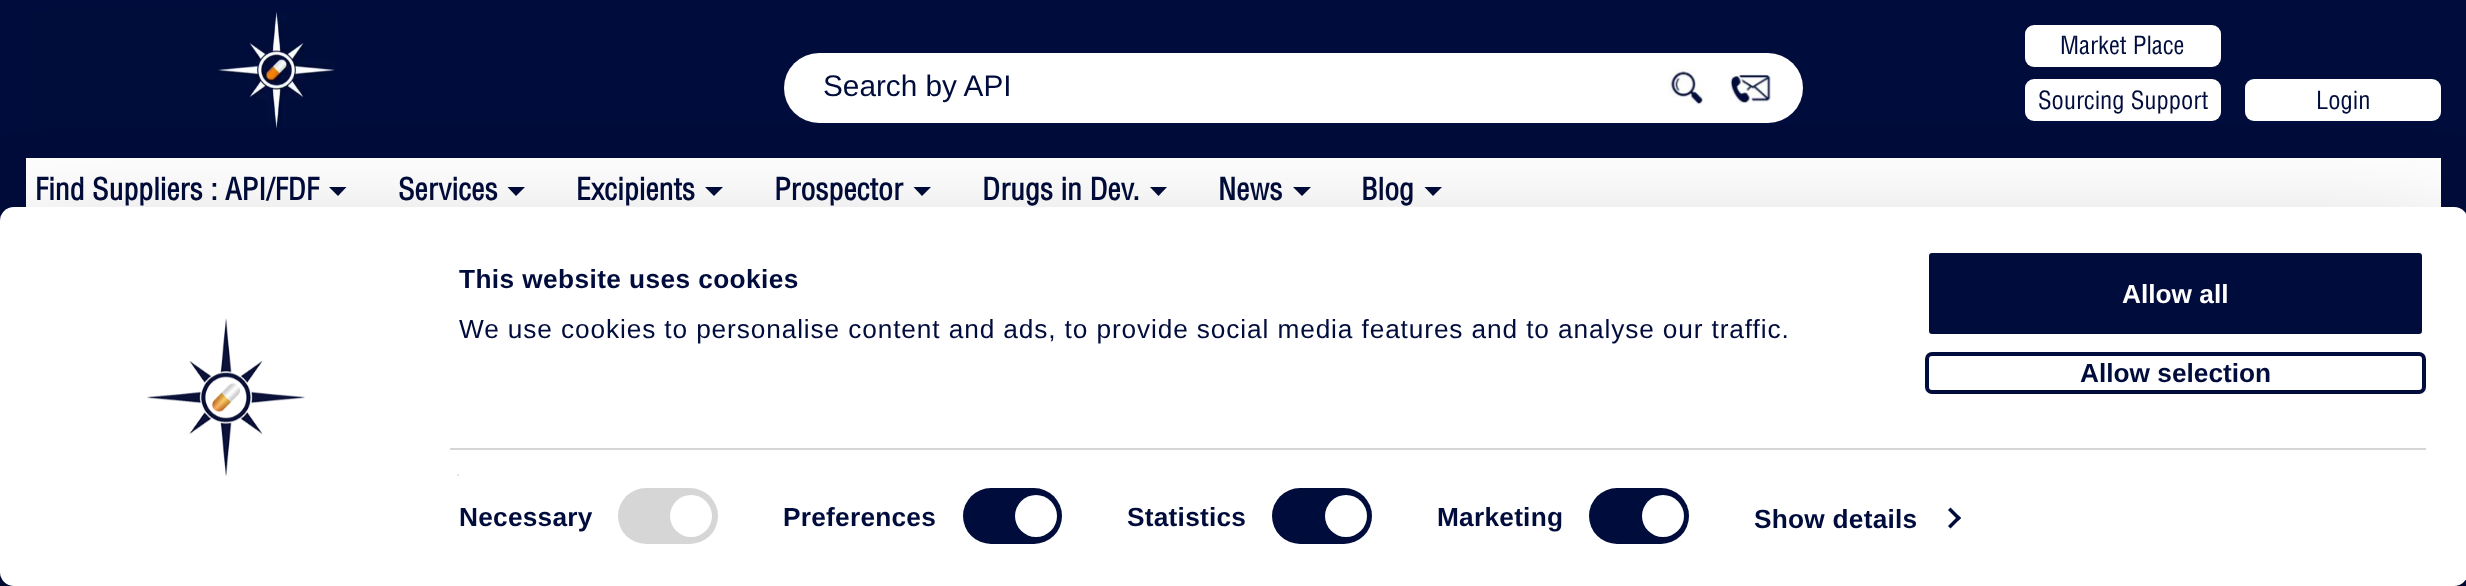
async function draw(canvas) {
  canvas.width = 2466
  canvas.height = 586
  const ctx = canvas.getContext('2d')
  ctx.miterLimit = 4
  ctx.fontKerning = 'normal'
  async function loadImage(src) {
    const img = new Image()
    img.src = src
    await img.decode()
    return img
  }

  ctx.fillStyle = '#000c3b'
  ctx.fillRect(0, 0, 2466, 586)
  ctx.drawImage(await loadImage('image0.png'), 33, 12, 302, 117)
  ctx.fillStyle = '#fff'
  ctx.beginPath()
  ctx.roundRect(784, 53, 1019, 70, 35)
  ctx.fill()
  ctx.font = '29.75px Liberation Sans'
  ctx.fillStyle = '#000c3b'
  ctx.fillText('Search by API', 823, 96)
  ctx.drawImage(await loadImage('image1.png'), 1668, 68, 38, 37)
  ctx.drawImage(await loadImage('image2.png'), 1729, 71, 42, 33)
  ctx.fillStyle = '#fff'
  ctx.beginPath()
  ctx.roundRect(2025, 25, 196, 42, 9)
  ctx.fill()
  ctx.font = '500 24.5px Helvetica'
  ctx.fillStyle = '#000c3b'
  ctx.fillText('Market Place', 2060, 54)
  ctx.fillStyle = '#fff'
  ctx.beginPath()
  ctx.roundRect(2025, 79, 196, 42, 9)
  ctx.fill()
  ctx.fillStyle = '#000c3b'
  ctx.fillText('Sourcing Support', 2038, 109)
  ctx.fillStyle = '#fff'
  ctx.beginPath()
  ctx.roundRect(2245, 79, 196, 42, 9)
  ctx.fill()
  ctx.fillStyle = '#000c3b'
  ctx.fillText('Login', 2316, 109)
  ctx.fillStyle = '#fff'
  ctx.fillRect(26, 158, 2415, 49)
  ctx.font = 'bold 29.75px Helvetica'
  ctx.fillStyle = '#000c3b'
  ctx.fillText('Find Suppliers : API/FDF', 35, 200)
  ctx.beginPath()
  ctx.moveTo(329, 187)
  ctx.lineTo(346.5, 187)
  ctx.lineTo(338, 196)
  ctx.closePath()
  ctx.fill()
  ctx.fillText('Services', 398, 200)
  ctx.beginPath()
  ctx.moveTo(507.5, 187)
  ctx.lineTo(525, 187)
  ctx.lineTo(516, 196)
  ctx.closePath()
  ctx.fill()
  ctx.fillText('Excipients', 576, 200)
  ctx.beginPath()
  ctx.moveTo(705, 187)
  ctx.lineTo(723, 187)
  ctx.lineTo(714, 196)
  ctx.closePath()
  ctx.fill()
  ctx.fillText('Prospector', 774, 200)
  ctx.beginPath()
  ctx.moveTo(913.5, 187)
  ctx.lineTo(931, 187)
  ctx.lineTo(922, 196)
  ctx.closePath()
  ctx.fill()
  ctx.fillText('Drugs in Dev.', 982, 200)
  ctx.beginPath()
  ctx.moveTo(1150, 187)
  ctx.lineTo(1167, 187)
  ctx.lineTo(1158.5, 196)
  ctx.closePath()
  ctx.fill()
  ctx.fillText('News', 1218, 200)
  ctx.beginPath()
  ctx.moveTo(1293, 187)
  ctx.lineTo(1311, 187)
  ctx.lineTo(1302, 196)
  ctx.closePath()
  ctx.fill()
  ctx.fillText('Blog', 1361, 200)
  ctx.beginPath()
  ctx.moveTo(1424.5, 187)
  ctx.lineTo(1442, 187)
  ctx.lineTo(1433, 196)
  ctx.closePath()
  ctx.fill()
  ctx.fillStyle = '#0000004d'
  ctx.filter = 'blur(61px)'
  ctx.beginPath()
  ctx.roundRect(0, 259, 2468, 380, 14)
  ctx.fill()
  ctx.filter = 'none'
  ctx.fillStyle = '#fff'
  ctx.beginPath()
  ctx.roundRect(0, 207, 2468, 379, 14)
  ctx.fill()
  ctx.drawImage(await loadImage('image3.png'), 147, 318, 158, 158)
  ctx.letterSpacing = '0.4px'
  ctx.font = 'bold 26.25px Liberation Sans'
  ctx.fillStyle = '#000c3b'
  ctx.fillText('This website uses cookies', 459, 288)
  ctx.letterSpacing = '0.88px'
  ctx.font = '26.25px Liberation Sans'
  ctx.fillText('We use cookies to personalise content and ads, to provide social media features and to analyse our traffic.', 459, 338)
  ctx.fillStyle = '#d6d6d6'
  ctx.fillRect(450, 448, 1976, 2)
  ctx.fillStyle = '#e5e5e5'
  ctx.fillRect(457, 474, 2, 2)
  ctx.letterSpacing = '0.25px'
  ctx.font = 'bold 26.25px Liberation Sans'
  ctx.fillStyle = '#000c3b'
  ctx.fillText('Necessary', 459, 526)
  ctx.fillStyle = '#d6d6d6'
  ctx.beginPath()
  ctx.roundRect(618, 488, 100, 56, 28)
  ctx.fill()
  ctx.fillStyle = '#fff'
  ctx.beginPath()
  ctx.arc(691, 516, 21, 0, 2 * Math.PI)
  ctx.fill()
  ctx.fillStyle = '#000c3b'
  ctx.fillText('Preferences', 783, 526)
  ctx.beginPath()
  ctx.roundRect(963, 488, 99, 56, 28)
  ctx.fill()
  ctx.fillStyle = '#fff'
  ctx.beginPath()
  ctx.arc(1036, 516, 21, 0, 2 * Math.PI)
  ctx.fill()
  ctx.fillStyle = '#000c3b'
  ctx.fillText('Statistics', 1127, 526)
  ctx.beginPath()
  ctx.roundRect(1272, 488, 100, 56, 28)
  ctx.fill()
  ctx.fillStyle = '#fff'
  ctx.beginPath()
  ctx.arc(1346, 516, 21, 0, 2 * Math.PI)
  ctx.fill()
  ctx.fillStyle = '#000c3b'
  ctx.fillText('Marketing', 1437, 526)
  ctx.beginPath()
  ctx.roundRect(1589, 488, 100, 56, 28)
  ctx.fill()
  ctx.fillStyle = '#fff'
  ctx.beginPath()
  ctx.arc(1663, 516, 21, 0, 2 * Math.PI)
  ctx.fill()
  ctx.fillStyle = '#000c3b'
  ctx.fillText('Show details', 1754, 528)
  ctx.beginPath()
  ctx.moveTo(1950.5, 507.5)
  ctx.lineTo(1961, 518)
  ctx.lineTo(1958.5, 520.5)
  ctx.lineTo(1948, 510)
  ctx.closePath()
  ctx.fill()
  ctx.beginPath()
  ctx.moveTo(1958.5, 515.5)
  ctx.lineTo(1961, 518)
  ctx.lineTo(1950.5, 528.5)
  ctx.lineTo(1948, 526)
  ctx.closePath()
  ctx.fill()
  ctx.beginPath()
  ctx.roundRect(1927, 251, 497, 85, 5)
  ctx.fill()
  ctx.strokeStyle = '#fff'
  ctx.lineWidth = 4
  ctx.stroke()
  ctx.letterSpacing = '0px'
  ctx.fillStyle = '#fff'
  ctx.fillText('Allow all', 2122, 303)
  ctx.beginPath()
  ctx.roundRect(1927, 354, 497, 38, 5)
  ctx.strokeStyle = '#000c3b'
  ctx.stroke()
  ctx.fillStyle = '#000c3b'
  ctx.fillText('Allow selection', 2080, 382)
}

draw(document.querySelector('canvas'))
